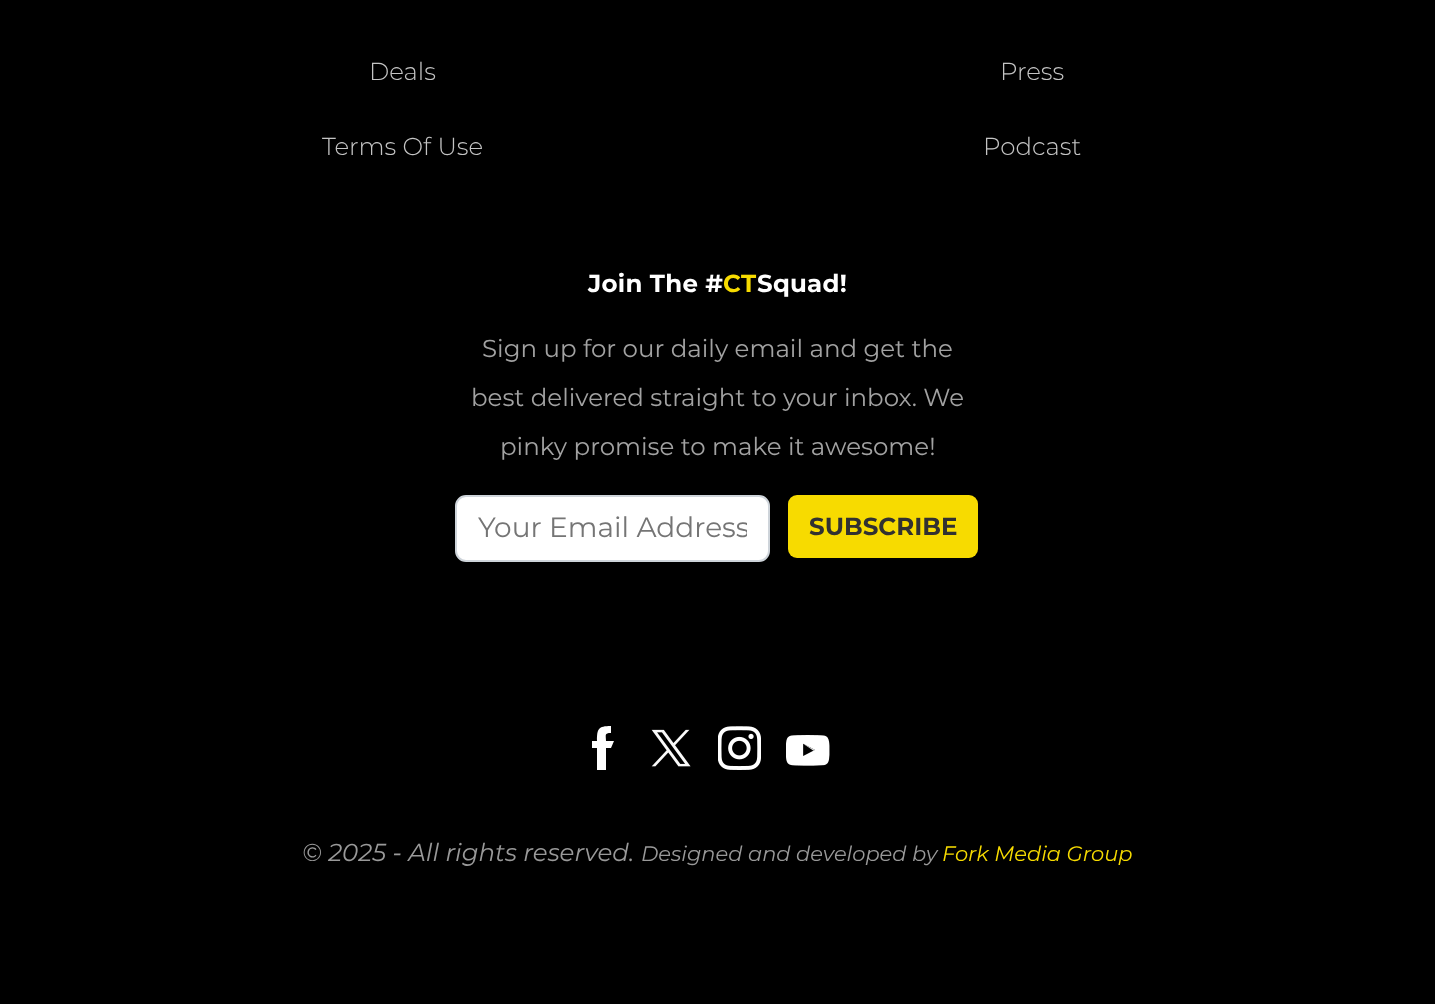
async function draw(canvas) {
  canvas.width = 1435
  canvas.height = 1004
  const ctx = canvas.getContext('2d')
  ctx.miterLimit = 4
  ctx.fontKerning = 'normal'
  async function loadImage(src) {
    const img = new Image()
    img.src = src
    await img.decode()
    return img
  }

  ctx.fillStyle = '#000'
  ctx.fillRect(0, 0, 1435, 1004)
  ctx.font = '300 24.5px Montserrat'
  ctx.fillStyle = '#c4c4c4'
  ctx.fillText('Deals', 369, 80)
  ctx.fillText('Press', 1000, 80)
  ctx.fillText('Terms Of Use', 322, 155)
  ctx.fillText('Podcast', 983, 155)
  ctx.letterSpacing = '0.25px'
  ctx.font = 'bold 24.5px Montserrat'
  ctx.fillStyle = '#fff'
  ctx.fillText('Join The #', 588, 292)
  ctx.fillStyle = '#f7db00'
  ctx.fillText('CT', 723, 292)
  ctx.fillStyle = '#fff'
  ctx.fillText('Squad!', 757, 292)
  ctx.letterSpacing = '0px'
  ctx.font = '24.5px Montserrat'
  ctx.fillStyle = '#a2a2a2'
  ctx.fillText('Sign up for our daily email and get the', 482, 357)
  ctx.fillText('best delivered straight to your inbox. We', 471, 406)
  ctx.fillText('pinky promise to make it awesome!', 500, 455)
  ctx.fillStyle = '#fff'
  ctx.beginPath()
  ctx.roundRect(456, 496, 313, 65, 10)
  ctx.fill()
  ctx.strokeStyle = '#ced4da'
  ctx.lineWidth = 2
  ctx.stroke()
  ctx.save()
  ctx.beginPath()
  ctx.rect(478, 511, 269, 33)
  ctx.clip()
  ctx.font = '28px Montserrat'
  ctx.fillStyle = '#757575'
  ctx.fillText('Your Email Address', 478, 537)
  ctx.restore()
  ctx.fillStyle = '#f7db00'
  ctx.beginPath()
  ctx.roundRect(788, 495, 190, 63, 9)
  ctx.fill()
  ctx.font = 'bold 24.5px Montserrat'
  ctx.fillStyle = '#313131'
  ctx.fillText('SUBSCRIBE', 809, 535)
  ctx.fillStyle = '#fff'
  ctx.beginPath()
  ctx.moveTo(614, 741)
  ctx.lineTo(606, 741)
  ctx.bezierCurveTo(606, 735, 604, 733, 611, 733)
  ctx.lineTo(611, 726)
  ctx.bezierCurveTo(598, 726, 597, 729, 597, 741)
  ctx.lineTo(592, 741)
  ctx.lineTo(592, 748)
  ctx.lineTo(597, 748)
  ctx.lineTo(597, 770)
  ctx.lineTo(606, 770)
  ctx.lineTo(606, 748)
  ctx.lineTo(611, 748)
  ctx.closePath()
  ctx.fill('evenodd')
  ctx.drawImage(await loadImage('image0.png'), 651, 729, 40, 38)
  ctx.drawImage(await loadImage('image1.png'), 718, 726, 43, 44)
  ctx.drawImage(await loadImage('image2.png'), 786, 735, 44, 31)
  ctx.font = 'italic 24.5px Montserrat'
  ctx.fillStyle = '#999'
  ctx.fillText('© 2025 - All rights reserved.', 302, 861)
  ctx.font = 'italic 21px Montserrat'
  ctx.fillText('Designed and developed by', 641, 861)
  ctx.fillStyle = '#f7db00'
  ctx.fillText('Fork Media Group', 942, 861)
}

draw(document.querySelector('canvas'))
